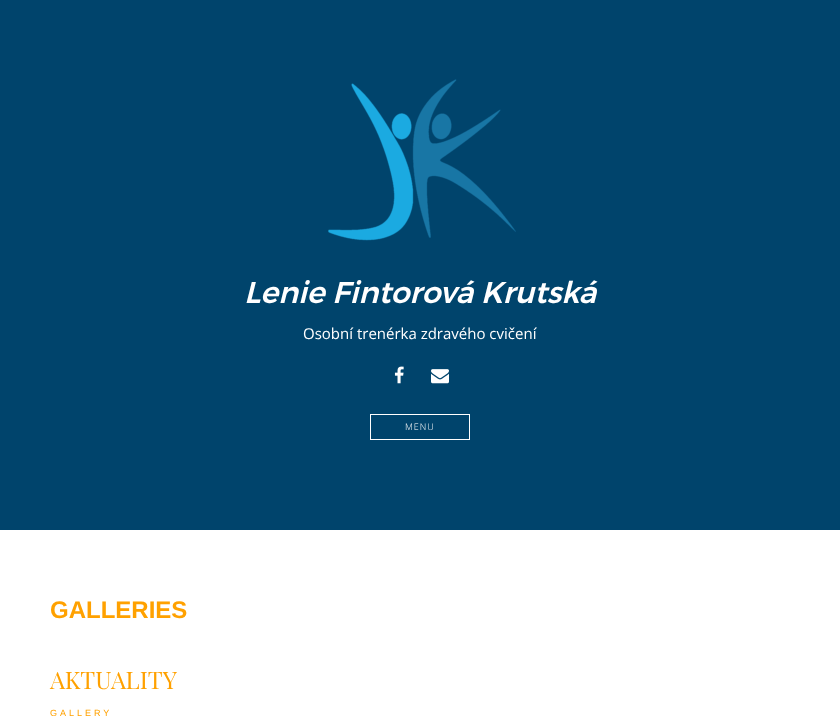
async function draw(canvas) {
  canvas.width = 840
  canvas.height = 717
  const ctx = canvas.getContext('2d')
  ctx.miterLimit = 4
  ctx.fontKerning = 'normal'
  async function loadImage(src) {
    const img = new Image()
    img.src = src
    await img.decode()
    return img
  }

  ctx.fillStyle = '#fff'
  ctx.fillRect(0, 0, 840, 717)
  ctx.fillStyle = '#00446c'
  ctx.fillRect(0, 0, 840, 530)
  ctx.drawImage(await loadImage('image0.png'), 328, 79, 188, 162)
  ctx.font = 'italic 500 30px Montserrat'
  ctx.fillStyle = '#fff'
  ctx.fillText('Lenie Fintorová Krutská', 244, 303)
  ctx.font = '15px Open Sans'
  ctx.fillText('Osobní trenérka zdravého cvičení', 303, 339)
  ctx.drawImage(await loadImage('image1.png'), 394, 366, 10, 18)
  ctx.drawImage(await loadImage('image2.png'), 431, 369, 18, 15)
  ctx.strokeStyle = '#fff'
  ctx.strokeRect(370.5, 414.5, 99, 25)
  ctx.letterSpacing = '1px'
  ctx.font = '300 9px Open Sans'
  ctx.fillText('MENU', 405, 430)
  ctx.letterSpacing = '0px'
  ctx.font = 'bold 24px Liberation Sans'
  ctx.fillStyle = '#ffa100'
  ctx.fillText('GALLERIES', 50, 618)
  ctx.font = '24px Playfair Display'
  ctx.fillText('AKTUALITY', 50, 689)
  ctx.letterSpacing = '3px'
  ctx.font = '9px Liberation Sans'
  ctx.fillText('GALLERY', 50, 716)
}

draw(document.querySelector('canvas'))
